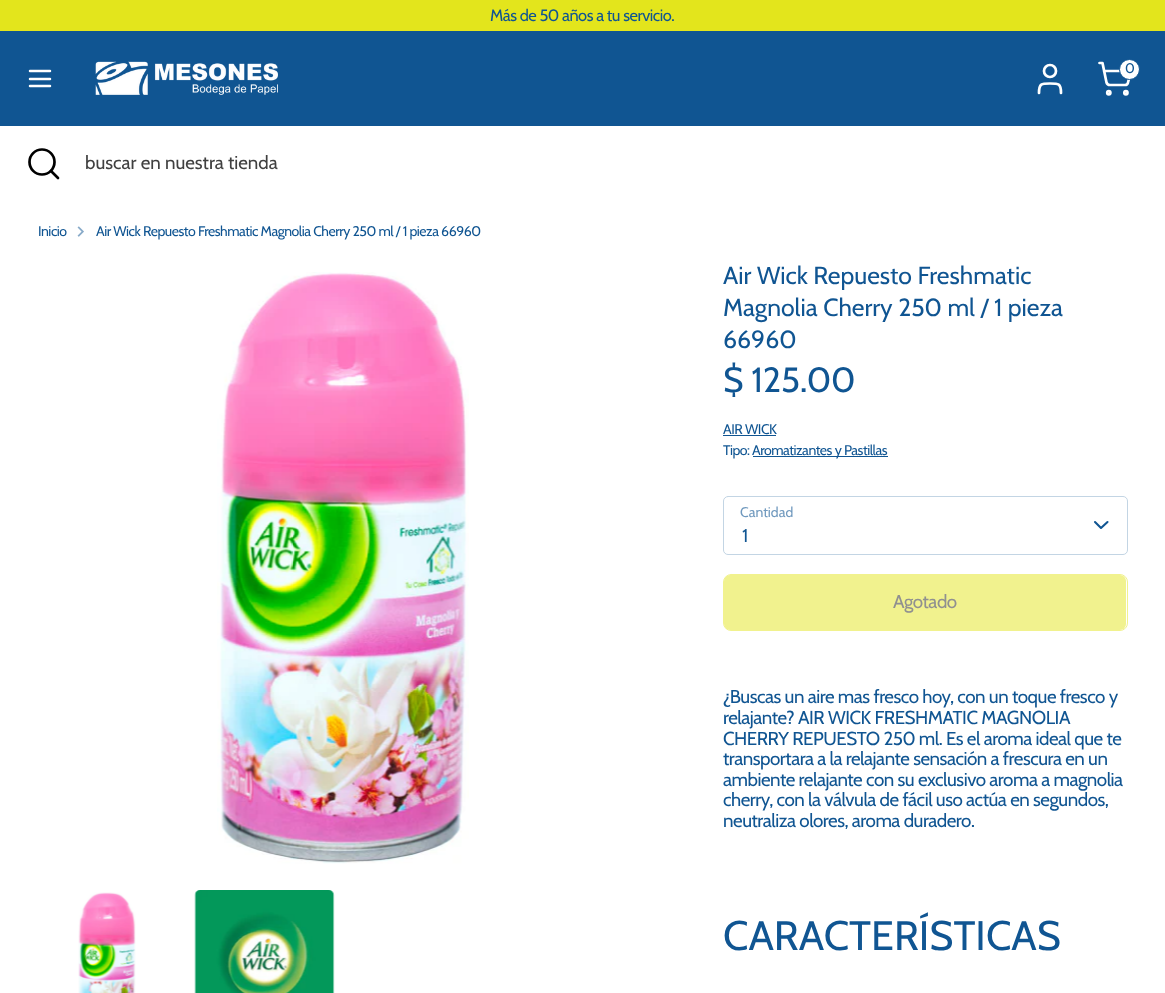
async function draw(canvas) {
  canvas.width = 1165
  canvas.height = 993
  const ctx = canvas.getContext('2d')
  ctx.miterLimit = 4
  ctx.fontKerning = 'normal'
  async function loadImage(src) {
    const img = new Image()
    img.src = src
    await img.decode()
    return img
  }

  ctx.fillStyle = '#fff'
  ctx.fillRect(0, 0, 1165, 993)
  ctx.fillStyle = '#e3e51c'
  ctx.fillRect(0, 0, 1165, 31)
  ctx.letterSpacing = '-0.47px'
  ctx.font = '16.4px Cabin'
  ctx.fillStyle = '#105592'
  ctx.fillText('Más de 50 años a tu servicio.', 490, 21)
  ctx.fillRect(0, 31, 1165, 95)
  ctx.beginPath()
  ctx.moveTo(30, 79)
  ctx.lineTo(50, 79)
  ctx.moveTo(30, 71)
  ctx.lineTo(50, 71)
  ctx.moveTo(30, 86)
  ctx.lineTo(50, 86)
  ctx.strokeStyle = '#fff'
  ctx.lineWidth = 2.5
  ctx.lineCap = 'round'
  ctx.lineJoin = 'round'
  ctx.stroke()
  ctx.drawImage(await loadImage('image0.png'), 95, 61, 183, 34)
  ctx.beginPath()
  ctx.moveTo(1061, 93)
  ctx.bezierCurveTo(1061, 83.5, 1058.5, 83.5, 1050, 83.5)
  ctx.bezierCurveTo(1041.5, 83.5, 1039, 83.5, 1039, 93)
  ctx.lineWidth = 2.7
  ctx.stroke()
  ctx.beginPath()
  ctx.arc(1050, 71, 6, 0, 2 * Math.PI)
  ctx.stroke()
  ctx.beginPath()
  ctx.arc(1108.8, 92.8, 1.6, 0, 2 * Math.PI)
  ctx.stroke()
  ctx.beginPath()
  ctx.arc(1125.9, 92.8, 1.6, 0, 2 * Math.PI)
  ctx.stroke()
  ctx.beginPath()
  ctx.moveTo(1099.5, 63)
  ctx.lineTo(1102.5, 63)
  ctx.lineTo(1106.5, 82.5)
  ctx.bezierCurveTo(1107, 84, 1108.5, 85, 1110, 85)
  ctx.lineTo(1125, 85)
  ctx.bezierCurveTo(1126.5, 85, 1128, 84, 1128, 82.5)
  ctx.lineTo(1131, 71)
  ctx.lineTo(1104, 71)
  ctx.stroke()
  ctx.fillStyle = '#fff'
  ctx.beginPath()
  ctx.arc(1129.5, 69.5, 10, 0, 2 * Math.PI)
  ctx.fill()
  ctx.strokeStyle = '#105592'
  ctx.lineWidth = 1
  ctx.stroke()
  ctx.letterSpacing = '0px'
  ctx.font = '14px Cabin'
  ctx.fillStyle = '#105592'
  ctx.fillText('0', 1125, 73)
  ctx.beginPath()
  ctx.arc(42, 162, 12.5, 0, 2 * Math.PI)
  ctx.strokeStyle = '#000'
  ctx.lineWidth = 2.7
  ctx.stroke()
  ctx.beginPath()
  ctx.moveTo(58, 178)
  ctx.lineTo(51, 171)
  ctx.stroke()
  ctx.font = '18.75px Cabin'
  ctx.fillStyle = '#404040'
  ctx.fillText('buscar en nuestra tienda', 85, 169)
  ctx.letterSpacing = '-0.47px'
  ctx.font = '14.05px Cabin'
  ctx.fillStyle = '#105592'
  ctx.fillText('Inicio', 38, 236)
  ctx.drawImage(await loadImage('image1.png'), 77, 226, 7, 11)
  ctx.fillText('Air Wick Repuesto Freshmatic Magnolia Cherry 250 ml / 1 pieza 66960', 96, 236)
  ctx.drawImage(await loadImage('image2.png'), 217, 272, 252, 592)
  ctx.drawImage(await loadImage('image3.png'), 78, 892, 58, 101)
  ctx.drawImage(await loadImage('image4.png'), 194, 890, 141, 103)
  ctx.letterSpacing = '0px'
  ctx.font = '24.75px Cabin'
  ctx.fillText('Air Wick Repuesto Freshmatic', 723, 284)
  ctx.fillText('Magnolia Cherry 250 ml / 1 pieza', 723, 316)
  ctx.fillText('66960', 723, 348)
  ctx.font = '35px Cabin'
  ctx.fillText('$ 125.00', 723, 392)
  ctx.letterSpacing = '-0.47px'
  ctx.font = '14.05px Cabin'
  ctx.fillText('AIR WICK', 723, 434)
  ctx.fillRect(723, 435, 53, 1)
  ctx.fillText('Tipo:', 723, 455)
  ctx.fillRect(753, 456, 135, 1)
  ctx.fillText('Aromatizantes y Pastillas', 752, 455)
  ctx.letterSpacing = '0px'
  ctx.fillStyle = '#7099be'
  ctx.fillText('Cantidad', 740, 517)
  ctx.beginPath()
  ctx.roundRect(723.5, 496.5, 404, 58, 4.5)
  ctx.strokeStyle = '#c3d5e4'
  ctx.lineWidth = 1
  ctx.lineJoin = 'miter'
  ctx.stroke()
  ctx.beginPath()
  ctx.moveTo(1095, 522)
  ctx.lineTo(1101, 528)
  ctx.lineTo(1107.5, 522)
  ctx.strokeStyle = '#105592'
  ctx.lineWidth = 2.1
  ctx.lineJoin = 'round'
  ctx.stroke()
  ctx.letterSpacing = '-0.47px'
  ctx.font = '18.75px Cabin'
  ctx.fillStyle = '#105592'
  ctx.fillText('1', 742, 542)
  ctx.beginPath()
  ctx.roundRect(723.5, 574.5, 404, 56, 7.5)
  ctx.strokeStyle = '#f1f28e'
  ctx.lineWidth = 1
  ctx.lineJoin = 'miter'
  ctx.stroke()
  ctx.fillStyle = '#f1f28e'
  ctx.beginPath()
  ctx.roundRect(724, 575, 402, 55, 6)
  ctx.fill()
  ctx.fillStyle = '#909090'
  ctx.fillText('Agotado', 893, 608)
  ctx.fillStyle = '#105592'
  ctx.fillText('¿Buscas un aire mas fresco hoy, con un toque fresco y', 723, 703)
  ctx.fillText('relajante? AIR WICK FRESHMATIC MAGNOLIA', 723, 724)
  ctx.fillText('CHERRY REPUESTO 250 ml. Es el aroma ideal que te', 723, 745)
  ctx.fillText('transportara a la relajante sensación a frescura en un', 723, 765)
  ctx.fillText('ambiente relajante con su exclusivo aroma a magnolia', 723, 786)
  ctx.fillText('cherry, con la válvula de fácil uso actúa en segundos,', 723, 806)
  ctx.fillText('neutraliza olores, aroma duradero.', 723, 827)
  ctx.letterSpacing = '0px'
  ctx.font = '41.25px Cabin'
  ctx.fillText('CARACTERÍSTICAS', 723, 950)
}

draw(document.querySelector('canvas'))
